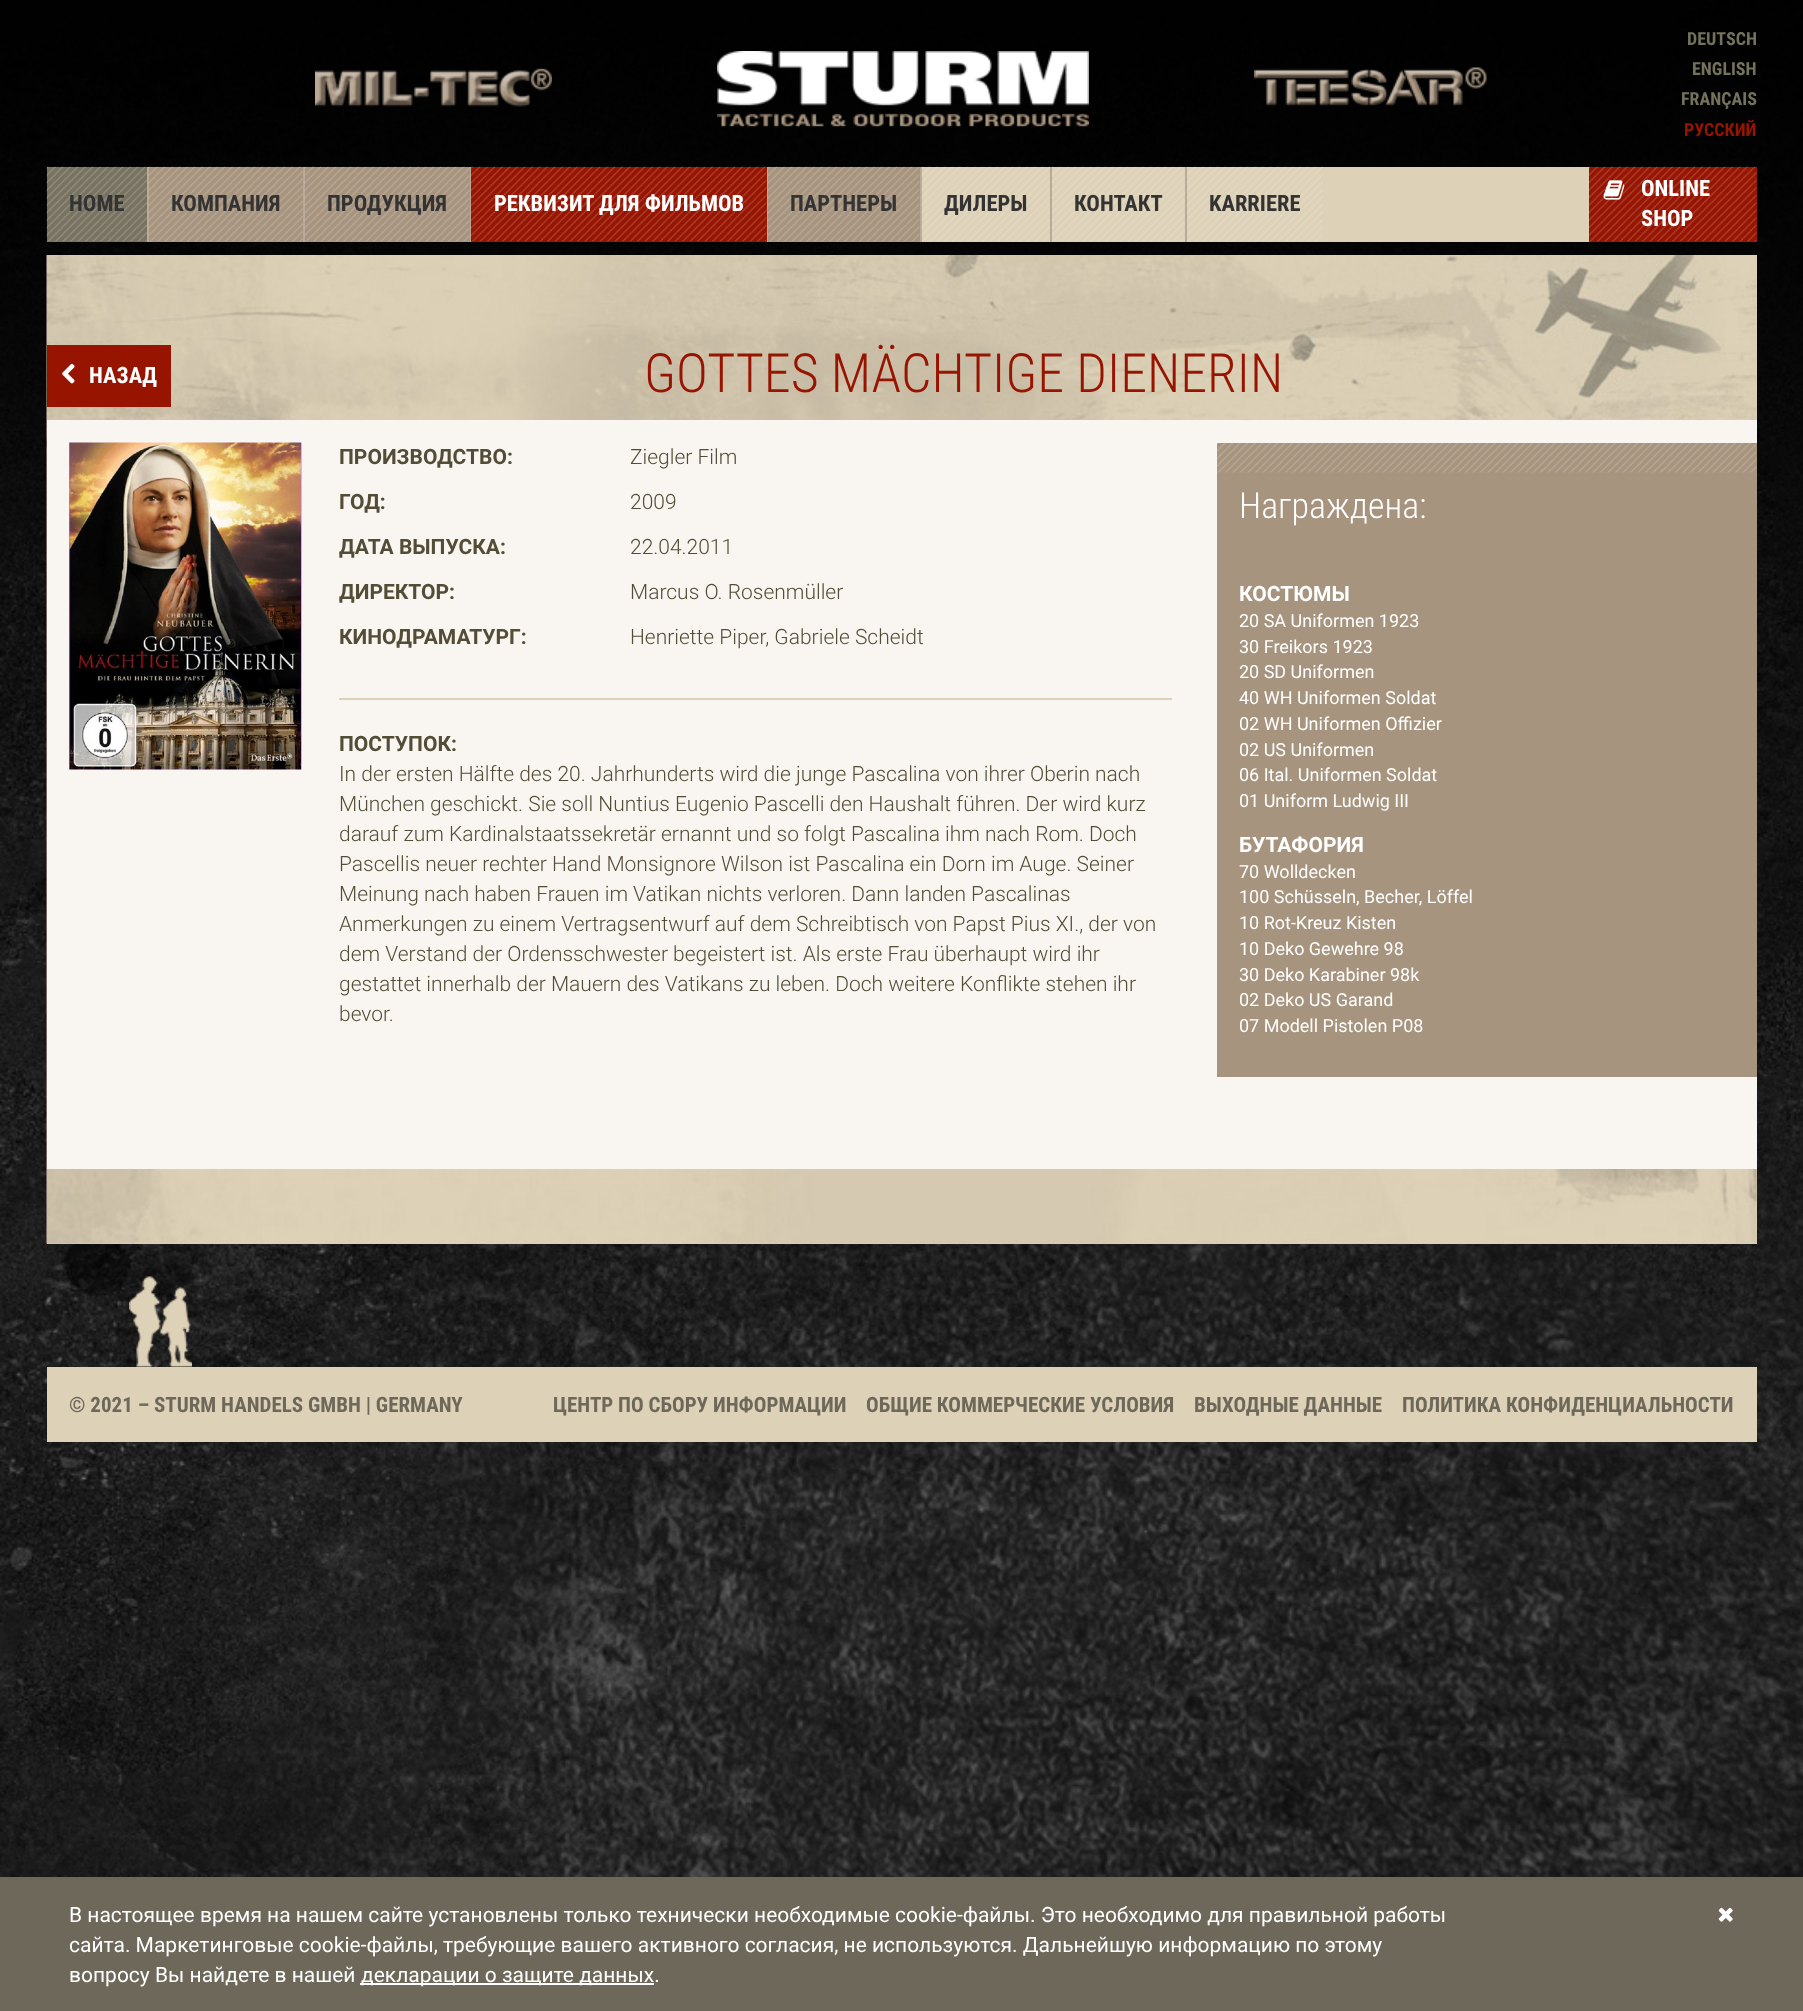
async function draw(canvas) {
  canvas.width = 1803
  canvas.height = 2011
  const ctx = canvas.getContext('2d')
  ctx.miterLimit = 4
  ctx.fontKerning = 'normal'
  async function loadImage(src) {
    const img = new Image()
    img.src = src
    await img.decode()
    return img
  }

  ctx.fillStyle = '#fff'
  ctx.fillRect(0, 0, 1803, 2011)
  ctx.drawImage(await loadImage('image0.png'), 0, 0, 1803, 1877)
  ctx.drawImage(await loadImage('image1.png'), 315, 68, 237, 39)
  ctx.drawImage(await loadImage('image2.png'), 717, 51, 372, 76)
  ctx.drawImage(await loadImage('image3.png'), 1254, 67, 233, 39)
  ctx.font = 'bold 18px Roboto Condensed'
  ctx.fillStyle = '#75725c'
  ctx.fillText('DEUTSCH', 1687, 45)
  ctx.fillText('ENGLISH', 1692, 75)
  ctx.fillText('FRANÇAIS', 1681, 105)
  ctx.fillStyle = '#961400'
  ctx.fillText('PУССКИЙ', 1684, 136)
  ctx.fillStyle = '#ddd1b7'
  ctx.fillRect(922, 167, 667, 75)
  ctx.fillStyle = '#787360'
  ctx.fillRect(47, 167, 100, 75)
  ctx.drawImage(await loadImage('image4.png'), 46, 166, 101, 76)
  ctx.font = 'bold 22.5px Roboto Condensed'
  ctx.fillStyle = '#333'
  ctx.fillText('HOME', 69, 211)
  ctx.fillStyle = '#b9a998'
  ctx.fillRect(147, 167, 2, 75)
  ctx.fillStyle = '#a7947e'
  ctx.fillRect(149, 167, 154, 75)
  ctx.drawImage(await loadImage('image5.png'), 148, 166, 155, 76)
  ctx.fillStyle = '#333'
  ctx.fillText('КОМПАНИЯ', 171, 211)
  ctx.fillStyle = '#b9a998'
  ctx.fillRect(303, 167, 2, 75)
  ctx.fillStyle = '#a7947e'
  ctx.fillRect(305, 167, 165, 75)
  ctx.drawImage(await loadImage('image6.png'), 304, 166, 166, 76)
  ctx.fillStyle = '#333'
  ctx.fillText('ПРОДУКЦИЯ', 327, 211)
  ctx.fillStyle = '#b9a998'
  ctx.fillRect(470, 167, 1, 75)
  ctx.fillStyle = '#961400'
  ctx.fillRect(471, 167, 296, 75)
  ctx.drawImage(await loadImage('image7.png'), 471, 166, 296, 76)
  ctx.fillStyle = '#fff'
  ctx.fillText('РЕКВИЗИТ ДЛЯ ФИЛЬМОВ', 494, 211)
  ctx.fillStyle = '#b9a998'
  ctx.fillRect(767, 167, 1, 75)
  ctx.fillStyle = '#a7947e'
  ctx.fillRect(768, 167, 152, 75)
  ctx.drawImage(await loadImage('image8.png'), 768, 166, 152, 76)
  ctx.fillStyle = '#333'
  ctx.fillText('ПАРТНЕРЫ', 790, 211)
  ctx.fillStyle = '#b9a998'
  ctx.fillRect(920, 167, 2, 75)
  ctx.drawImage(await loadImage('image9.png'), 921, 166, 129, 76)
  ctx.fillStyle = '#333'
  ctx.fillText('ДИЛЕРЫ', 944, 211)
  ctx.fillStyle = '#b9a998'
  ctx.fillRect(1050, 167, 2, 75)
  ctx.drawImage(await loadImage('image10.png'), 1051, 166, 134, 76)
  ctx.fillStyle = '#333'
  ctx.fillText('КОНТАКТ', 1074, 211)
  ctx.fillStyle = '#b9a998'
  ctx.fillRect(1185, 167, 2, 75)
  ctx.drawImage(await loadImage('image11.png'), 1186, 166, 137, 76)
  ctx.fillStyle = '#333'
  ctx.fillText('KARRIERE', 1209, 211)
  ctx.fillStyle = '#961400'
  ctx.fillRect(1589, 167, 168, 75)
  ctx.drawImage(await loadImage('image12.png'), 1588, 166, 169, 76)
  ctx.drawImage(await loadImage('image13.png'), 1603, 180, 22, 20)
  ctx.fillStyle = '#fff'
  ctx.fillText('ONLINE', 1641, 196)
  ctx.fillText('SHOP', 1641, 226)
  ctx.fillStyle = '#ddd1b7'
  ctx.fillRect(47, 255, 1710, 989)
  ctx.drawImage(await loadImage('image14.png'), 46, 255, 1711, 989)
  ctx.fillStyle = '#961400'
  ctx.fillRect(47, 345, 124, 62)
  ctx.drawImage(await loadImage('image15.png'), 62, 363, 13, 21)
  ctx.fillStyle = '#fff'
  ctx.fillText('НАЗАД', 89, 383)
  ctx.font = '300 54px Roboto Condensed'
  ctx.fillStyle = '#961400'
  ctx.fillText('GOTTES MÄCHTIGE DIENERIN', 644, 392)
  ctx.fillStyle = '#f9f6f1'
  ctx.fillRect(47, 420, 1710, 749)
  ctx.drawImage(await loadImage('image16.png'), 69, 442, 233, 328)
  ctx.font = 'bold 21px Roboto'
  ctx.fillStyle = '#534c36'
  ctx.fillText('ПРОИЗВОДСТВО:', 339, 464)
  ctx.font = '300 21px Roboto'
  ctx.fillText('Ziegler Film', 630, 464)
  ctx.font = 'bold 21px Roboto'
  ctx.fillText('ГОД:', 339, 509)
  ctx.font = '300 21px Roboto'
  ctx.fillText('2009', 630, 509)
  ctx.font = 'bold 21px Roboto'
  ctx.fillText('ДАТА ВЫПУСКА:', 339, 554)
  ctx.font = '300 21px Roboto'
  ctx.fillText('22.04.2011', 630, 554)
  ctx.font = 'bold 21px Roboto'
  ctx.fillText('ДИРЕКТОР:', 339, 599)
  ctx.font = '300 21px Roboto'
  ctx.fillText('Marcus O. Rosenmüller', 630, 599)
  ctx.font = 'bold 21px Roboto'
  ctx.fillText('КИНОДРАМАТУРГ:', 339, 644)
  ctx.font = '300 21px Roboto'
  ctx.fillText('Henriette Piper, Gabriele Scheidt', 630, 644)
  ctx.fillStyle = '#ddd1b7'
  ctx.fillRect(339, 698, 833, 2)
  ctx.font = 'bold 21px Roboto'
  ctx.fillStyle = '#534c36'
  ctx.fillText('ПОСТУПОК:', 339, 751)
  ctx.font = '300 21px Roboto'
  ctx.fillText('In der ersten Hälfte des 20. Jahrhunderts wird die junge Pascalina von ihrer Oberin nach', 339, 781)
  ctx.fillText('München geschickt. Sie soll Nuntius Eugenio Pascelli den Haushalt führen. Der wird kurz', 339, 811)
  ctx.fillText('darauf zum Kardinalstaatssekretär ernannt und so folgt Pascalina ihm nach Rom. Doch', 339, 841)
  ctx.fillText('Pascellis neuer rechter Hand Monsignore Wilson ist Pascalina ein Dorn im Auge. Seiner', 339, 871)
  ctx.fillText('Meinung nach haben Frauen im Vatikan nichts verloren. Dann landen Pascalinas', 339, 901)
  ctx.fillText('Anmerkungen zu einem Vertragsentwurf auf dem Schreibtisch von Papst Pius XI., der von', 339, 931)
  ctx.fillText('dem Verstand der Ordensschwester begeistert ist. Als erste Frau überhaupt wird ihr', 339, 961)
  ctx.fillText('gestattet innerhalb der Mauern des Vatikans zu leben. Doch weitere Konflikte stehen ihr', 339, 991)
  ctx.fillText('bevor.', 339, 1021)
  ctx.fillStyle = '#a7947e'
  ctx.fillRect(1217, 443, 540, 634)
  ctx.drawImage(await loadImage('image17.png'), 1217, 443, 540, 30)
  ctx.font = '300 36px Roboto Condensed'
  ctx.fillStyle = '#fff'
  ctx.fillText('Награждена:', 1239, 518)
  ctx.font = 'bold 21px Roboto'
  ctx.fillText('КОСТЮМЫ', 1239, 601)
  ctx.font = '18px Roboto'
  ctx.fillText('20 SA Uniformen 1923', 1239, 627)
  ctx.fillText('30 Freikors 1923', 1239, 653)
  ctx.fillText('20 SD Uniformen', 1239, 678)
  ctx.fillText('40 WH Uniformen Soldat', 1239, 704)
  ctx.fillText('02 WH Uniformen Offizier', 1239, 730)
  ctx.fillText('02 US Uniformen', 1239, 756)
  ctx.fillText('06 Ital. Uniformen Soldat', 1239, 781)
  ctx.fillText('01 Uniform Ludwig III', 1239, 807)
  ctx.font = 'bold 21px Roboto'
  ctx.fillText('БУТАФОРИЯ', 1239, 852)
  ctx.font = '18px Roboto'
  ctx.fillText('70 Wolldecken', 1239, 878)
  ctx.fillText('100 Schüsseln, Becher, Löffel', 1239, 903)
  ctx.fillText('10 Rot-Kreuz Kisten', 1239, 929)
  ctx.fillText('10 Deko Gewehre 98', 1239, 955)
  ctx.fillText('30 Deko Karabiner 98k', 1239, 981)
  ctx.fillText('02 Deko US Garand', 1239, 1006)
  ctx.fillText('07 Modell Pistolen P08', 1239, 1032)
  ctx.drawImage(await loadImage('image18.png'), 129, 1276, 63, 91)
  ctx.fillStyle = '#ddd1b7'
  ctx.fillRect(47, 1367, 1710, 75)
  ctx.font = 'bold 21px Roboto Condensed'
  ctx.fillStyle = '#6e685b'
  ctx.fillText('© 2021 – STURM HANDELS GMBH | GERMANY', 69, 1412)
  ctx.fillText('ЦЕНТР ПО СБОРУ ИНФОРМАЦИИ', 553, 1412)
  ctx.fillText('ОБЩИЕ КОММЕРЧЕСКИЕ УСЛОВИЯ', 866, 1412)
  ctx.fillText('ВЫХОДНЫЕ ДАННЫЕ', 1194, 1412)
  ctx.fillText('ПОЛИТИКА КОНФИДЕНЦИАЛЬНОСТИ', 1402, 1412)
  ctx.fillRect(0, 1877, 1803, 134)
  ctx.font = '21px Roboto'
  ctx.fillStyle = '#fff'
  ctx.fillText('В настоящее время на нашем сайте установлены только технически необходимые cookie-файлы. Это необходимо для правильной работы', 69, 1922)
  ctx.fillText('сайта. Маркетинговые cookie-файлы, требующие вашего активного согласия, не используются. Дальнейшую информацию по этому', 69, 1952)
  ctx.fillText('вопросу Вы найдете в нашей', 69, 1982)
  ctx.fillRect(360, 1983, 294, 2)
  ctx.fillText('декларации о защите данных.', 361, 1982)
  ctx.drawImage(await loadImage('image19.png'), 1718, 1907, 15, 15)
}

draw(document.querySelector('canvas'))
